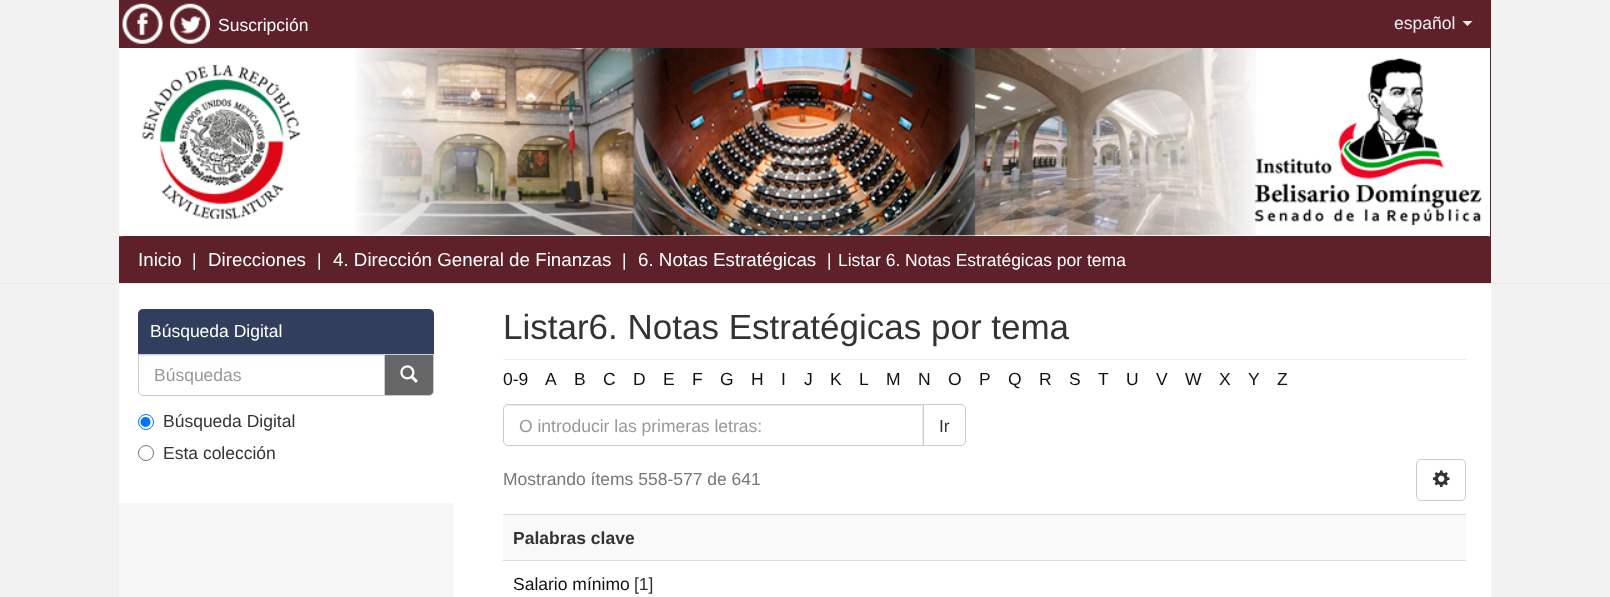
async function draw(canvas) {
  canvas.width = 1610
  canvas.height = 597
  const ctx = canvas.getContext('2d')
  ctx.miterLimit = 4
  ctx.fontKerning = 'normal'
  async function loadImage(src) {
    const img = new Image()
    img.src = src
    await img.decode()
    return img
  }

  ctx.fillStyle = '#f2f2f2'
  ctx.fillRect(0, 0, 1610, 597)
  ctx.fillStyle = '#5e2129'
  ctx.fillRect(119, 0, 1372, 48)
  ctx.drawImage(await loadImage('image0.png'), 122, 3, 41, 41)
  ctx.drawImage(await loadImage('image1.png'), 170, 3, 40, 41)
  ctx.font = '17.5px Liberation Sans'
  ctx.fillStyle = '#fff'
  ctx.fillText('Suscripción', 218, 31)
  ctx.fillStyle = '#eee'
  ctx.fillText('español', 1394, 29)
  ctx.beginPath()
  ctx.moveTo(1462.5, 21)
  ctx.lineTo(1472.5, 21)
  ctx.lineTo(1467.5, 26)
  ctx.closePath()
  ctx.fill()
  ctx.fillStyle = '#5e2129'
  ctx.fillRect(1490, 48, 1, 188)
  ctx.fillRect(119, 236, 1372, 47)
  ctx.drawImage(await loadImage('image2.png'), 119, 48, 1371, 189)
  ctx.fillStyle = '#eaeaea'
  ctx.fillRect(0, 283, 1610, 1)
  ctx.fillStyle = '#5e2129'
  ctx.beginPath()
  ctx.roundRect(119, 236, 1372, 47, 5)
  ctx.fill()
  ctx.font = '18.75px Liberation Sans'
  ctx.fillStyle = '#fff'
  ctx.fillText('Inicio', 138, 266)
  ctx.font = '17.5px Liberation Sans'
  ctx.fillText('|', 192, 266)
  ctx.font = '18.75px Liberation Sans'
  ctx.fillText('Direcciones', 208, 266)
  ctx.font = '17.5px Liberation Sans'
  ctx.fillText('|', 317, 266)
  ctx.font = '18.75px Liberation Sans'
  ctx.fillText('4. Dirección General de Finanzas', 333, 266)
  ctx.font = '17.5px Liberation Sans'
  ctx.fillText('|', 622, 266)
  ctx.font = '18.75px Liberation Sans'
  ctx.fillText('6. Notas Estratégicas', 638, 266)
  ctx.font = '17.5px Liberation Sans'
  ctx.fillText('|', 827, 266)
  ctx.fillText('Listar 6. Notas Estratégicas por tema', 838, 266)
  ctx.fillStyle = '#f7f7f7'
  ctx.fillRect(119, 503, 334, 94)
  ctx.fillStyle = '#fff'
  ctx.fillRect(119, 284, 334, 219)
  ctx.fillStyle = '#313e5d'
  ctx.beginPath()
  ctx.roundRect(138, 309, 296, 45, [5, 5, 0, 0])
  ctx.fill()
  ctx.fillStyle = '#fff'
  ctx.fillText('Búsqueda Digital', 150, 337)
  ctx.fillStyle = '#666'
  ctx.beginPath()
  ctx.roundRect(384.5, 354.5, 49, 41, [0, 0, 4.5, 0])
  ctx.fill()
  ctx.strokeStyle = '#ccc'
  ctx.stroke()
  ctx.fillStyle = '#fff'
  ctx.beginPath()
  ctx.roundRect(138, 354, 247, 42, [0, 0, 0, 5])
  ctx.fill()
  ctx.fillStyle = '#ececec'
  ctx.fillRect(139, 355, 245, 1)
  ctx.beginPath()
  ctx.roundRect(138.5, 354.5, 246, 41, [0, 0, 0, 4.5])
  ctx.stroke()
  ctx.fillStyle = '#999'
  ctx.fillText('Búsquedas', 154, 381)
  ctx.drawImage(await loadImage('image3.png'), 400, 365, 18, 18)
  ctx.beginPath()
  ctx.arc(146, 422, 7.5, 0, 2 * Math.PI)
  ctx.strokeStyle = '#0075ff'
  ctx.stroke()
  ctx.fillStyle = '#0075ff'
  ctx.beginPath()
  ctx.arc(145.5, 422, 5, 0, 2 * Math.PI)
  ctx.fill()
  ctx.fillStyle = '#333'
  ctx.fillText('Búsqueda Digital', 163, 427)
  ctx.beginPath()
  ctx.arc(146, 453, 7.5, 0, 2 * Math.PI)
  ctx.strokeStyle = '#767676'
  ctx.stroke()
  ctx.fillText('Esta colección', 163, 459)
  ctx.fillStyle = '#fff'
  ctx.fillRect(453, 284, 1038, 313)
  ctx.fillStyle = '#eee'
  ctx.fillRect(503, 359, 963, 1)
  ctx.font = '35px Liberation Sans'
  ctx.fillStyle = '#333'
  ctx.fillText('Listar6. Notas Estratégicas por tema', 503, 339)
  ctx.font = '17.5px Liberation Sans'
  ctx.fillStyle = '#111'
  ctx.fillText('0-9', 503, 385)
  ctx.fillText('A', 545, 385)
  ctx.fillText('B', 574, 385)
  ctx.fillText('C', 603, 385)
  ctx.fillText('D', 633, 385)
  ctx.fillText('E', 663, 385)
  ctx.fillText('F', 692, 385)
  ctx.fillText('G', 720, 385)
  ctx.fillText('H', 751, 385)
  ctx.fillText('I', 781, 385)
  ctx.fillText('J', 804, 385)
  ctx.fillText('K', 830, 385)
  ctx.fillText('L', 859, 385)
  ctx.fillText('M', 886, 385)
  ctx.fillText('N', 918, 385)
  ctx.fillText('O', 948, 385)
  ctx.fillText('P', 979, 385)
  ctx.fillText('Q', 1008, 385)
  ctx.fillText('R', 1039, 385)
  ctx.fillText('S', 1069, 385)
  ctx.fillText('T', 1098, 385)
  ctx.fillText('U', 1126, 385)
  ctx.fillText('V', 1156, 385)
  ctx.fillText('W', 1185, 385)
  ctx.fillText('X', 1219, 385)
  ctx.fillText('Y', 1248, 385)
  ctx.fillText('Z', 1277, 385)
  ctx.beginPath()
  ctx.roundRect(923.5, 404.5, 42, 41, [0, 4.5, 4.5, 0])
  ctx.strokeStyle = '#ccc'
  ctx.stroke()
  ctx.fillStyle = '#fff'
  ctx.beginPath()
  ctx.roundRect(503, 404, 421, 42, [5, 0, 0, 5])
  ctx.fill()
  ctx.fillStyle = '#ececec'
  ctx.beginPath()
  ctx.moveTo(508, 406)
  ctx.lineTo(922, 406)
  ctx.lineTo(922, 445)
  ctx.lineTo(923, 445)
  ctx.lineTo(923, 405)
  ctx.lineTo(508, 405)
  ctx.bezierCurveTo(506, 405, 504, 407, 504, 409)
  ctx.lineTo(504, 410)
  ctx.bezierCurveTo(504, 408, 505, 406, 508, 406)
  ctx.closePath()
  ctx.fill()
  ctx.beginPath()
  ctx.roundRect(503.5, 404.5, 420, 41, [4.5, 0, 0, 4.5])
  ctx.stroke()
  ctx.fillStyle = '#999'
  ctx.fillText('O introducir las primeras letras:', 519, 432)
  ctx.fillStyle = '#333'
  ctx.fillText('Ir', 939, 432)
  ctx.fillStyle = '#777'
  ctx.fillText('Mostrando ítems 558-577 de 641', 503, 485)
  ctx.beginPath()
  ctx.roundRect(1416.5, 459.5, 49, 41, 4.5)
  ctx.stroke()
  ctx.drawImage(await loadImage('image4.png'), 1432, 470, 18, 18)
  ctx.fillStyle = '#f9f9f9'
  ctx.fillRect(503, 515, 963, 45)
  ctx.fillStyle = '#ddd'
  ctx.fillRect(503, 514, 963, 1)
  ctx.font = 'bold 17.5px Liberation Sans'
  ctx.fillStyle = '#333'
  ctx.fillText('Palabras clave', 513, 544)
  ctx.fillStyle = '#ddd'
  ctx.fillRect(503, 560, 963, 1)
  ctx.font = '17.5px Liberation Sans'
  ctx.fillStyle = '#111'
  ctx.fillText('Salario mínimo', 513, 590)
  ctx.fillStyle = '#333'
  ctx.fillText('[1]', 634, 590)
}

draw(document.querySelector('canvas'))
